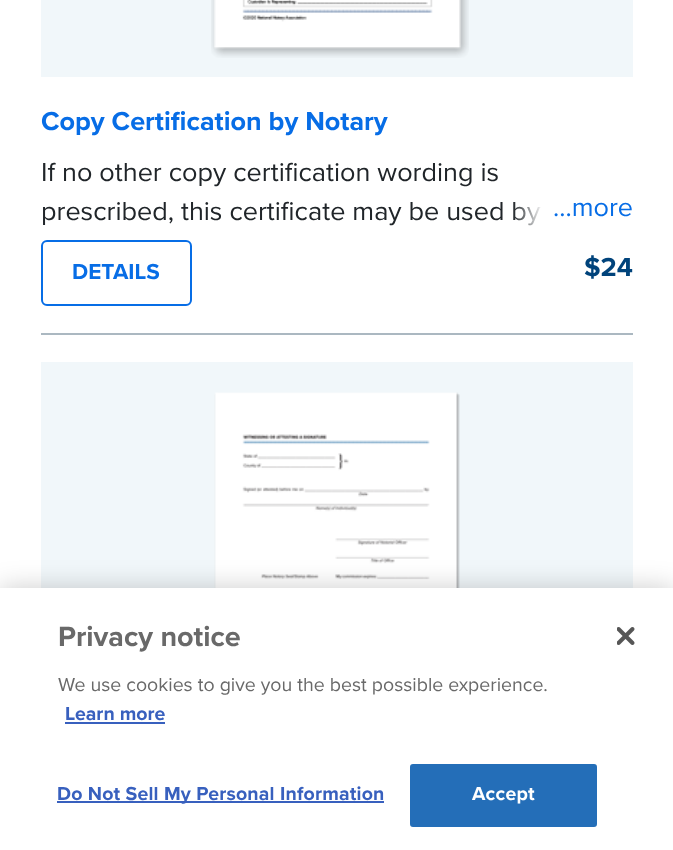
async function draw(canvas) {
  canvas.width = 673
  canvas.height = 850
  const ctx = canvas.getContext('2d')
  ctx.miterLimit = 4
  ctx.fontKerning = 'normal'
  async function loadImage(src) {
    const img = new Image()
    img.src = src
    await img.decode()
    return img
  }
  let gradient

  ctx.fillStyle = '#fff'
  ctx.fillRect(0, 0, 673, 850)
  ctx.fillStyle = '#abb8c1'
  ctx.fillRect(41, 333, 592, 2)
  ctx.fillStyle = '#f1f7fa'
  ctx.fillRect(41, 0, 592, 77)
  ctx.drawImage(await loadImage('image0.png'), 211, 0, 258, 58)
  ctx.font = 'bold 27px Proxima Nova'
  ctx.fillStyle = '#076de6'
  ctx.fillText('Copy Certification by Notary', 41, 130)
  ctx.font = '27px Proxima Nova'
  ctx.fillStyle = '#202529'
  ctx.fillText('If no other copy certification wording is', 41, 181)
  ctx.fillText('prescribed, this certificate may be used by', 41, 220)
  gradient = ctx.createLinearGradient(513, 208, 633, 208)
  gradient.addColorStop(0, '#ffffff00')
  gradient.addColorStop(0.25, '#fff')
  ctx.fillStyle = gradient
  ctx.fillRect(514, 202, 26, 24)
  ctx.fillStyle = '#076de6'
  ctx.fillText('...more', 553, 216)
  ctx.beginPath()
  ctx.roundRect(42, 241, 149, 64, 5)
  ctx.strokeStyle = '#076de6'
  ctx.lineWidth = 2
  ctx.stroke()
  ctx.font = 'bold 22.5px Proxima Nova'
  ctx.fillText('DETAILS', 72, 279)
  ctx.font = 'bold 27px Proxima Nova'
  ctx.fillStyle = '#00437b'
  ctx.fillText('$24', 584, 276)
  ctx.fillStyle = '#f1f7fa'
  ctx.fillRect(41, 362, 592, 226)
  ctx.drawImage(await loadImage('image1.png'), 214, 392, 246, 196)
  ctx.fillStyle = '#00000033'
  ctx.filter = 'blur(13.5px)'
  ctx.beginPath()
  ctx.rect(0, 588, 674, 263)
  ctx.fill()
  ctx.filter = 'none'
  ctx.fillStyle = '#fff'
  ctx.fillRect(0, 588, 673, 262)
  ctx.font = 'bold 28.75px Proxima Nova'
  ctx.fillStyle = '#696969'
  ctx.fillText('Privacy notice', 58, 646)
  ctx.font = '19.5px Proxima Nova'
  ctx.fillText('We use cookies to give you the best possible experience.', 58, 691)
  ctx.font = 'bold 19.5px Proxima Nova'
  ctx.fillStyle = '#3860be'
  ctx.fillText('Learn more', 65, 720)
  ctx.fillRect(65, 722, 100, 2)
  ctx.fillRect(57, 801, 327, 2)
  ctx.letterSpacing = '0.2px'
  ctx.fillText('Do Not Sell My Personal Information', 57, 800)
  ctx.fillStyle = '#246eb8'
  ctx.beginPath()
  ctx.roundRect(411, 765, 185, 61, 2)
  ctx.fill()
  ctx.strokeStyle = '#246eb8'
  ctx.stroke()
  ctx.fillStyle = '#fff'
  ctx.fillText('Accept', 472, 800)
  ctx.drawImage(await loadImage('image2.png'), 617, 627, 18, 18)
}

draw(document.querySelector('canvas'))
